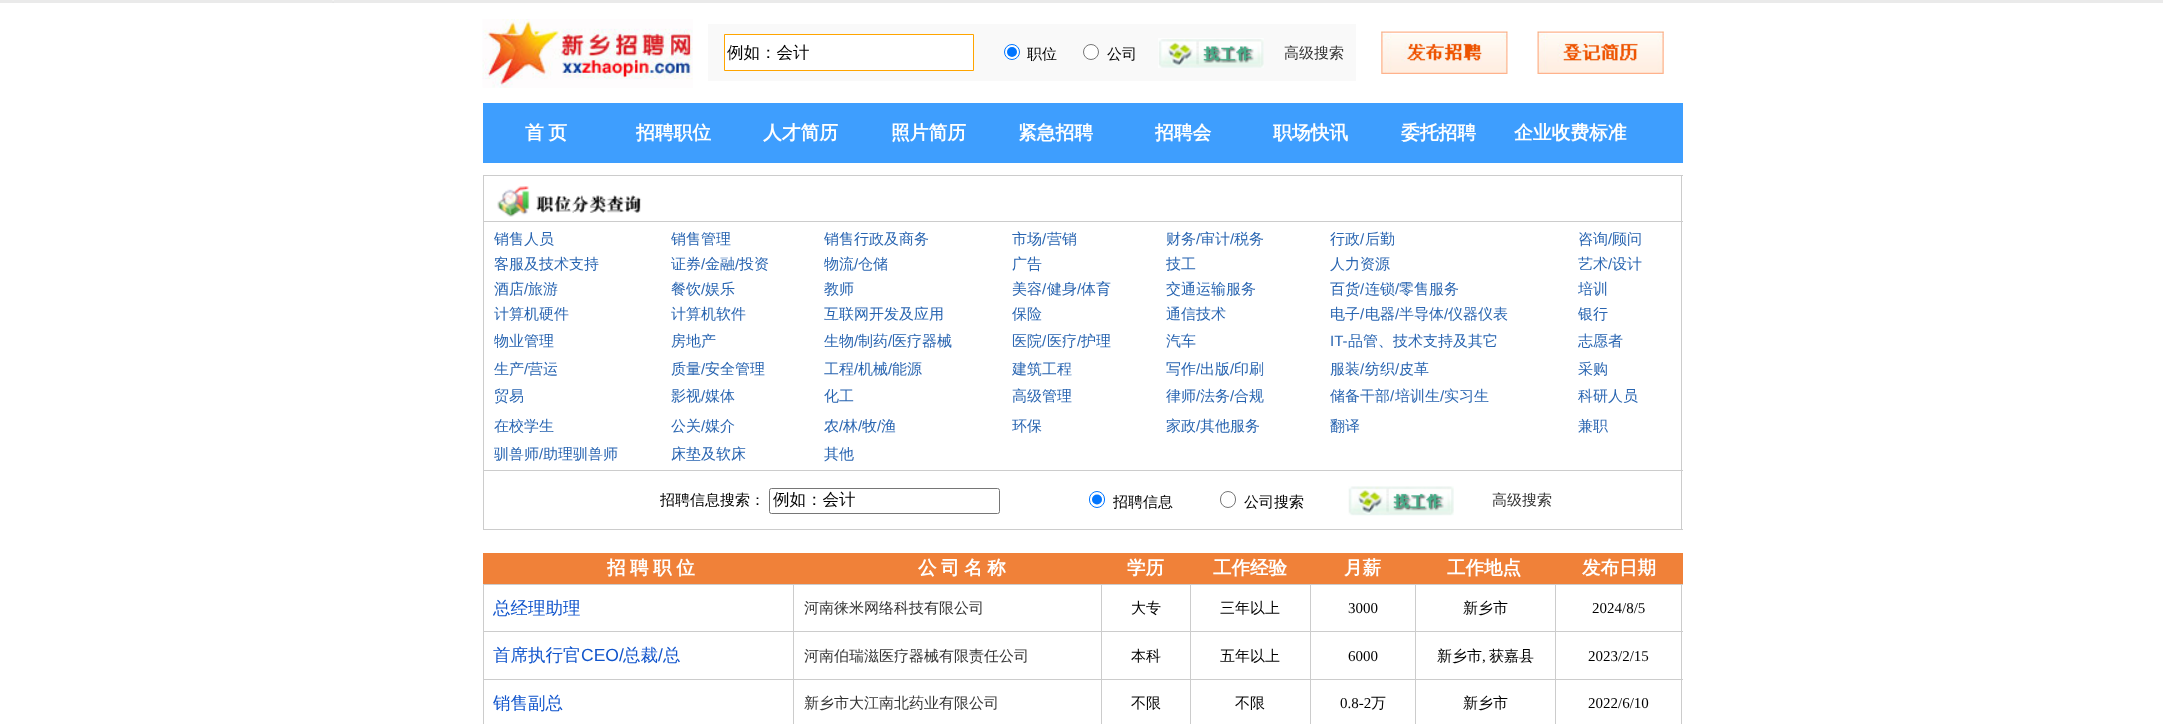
async function draw(canvas) {
  canvas.width = 2163
  canvas.height = 724
  const ctx = canvas.getContext('2d')
  ctx.miterLimit = 4
  ctx.fontKerning = 'normal'
  async function loadImage(src) {
    const img = new Image()
    img.src = src
    await img.decode()
    return img
  }

  ctx.fillStyle = '#fff'
  ctx.fillRect(0, 0, 2163, 724)
  ctx.fillStyle = '#eaeaea'
  ctx.fillRect(0, 0, 2163, 3)
  ctx.drawImage(await loadImage('image0.png'), 332, 0, 2, 3)
  ctx.drawImage(await loadImage('image1.png'), 482, 19, 211, 69)
  ctx.fillStyle = '#f9f9f9'
  ctx.fillRect(708, 24, 648, 57)
  ctx.fillStyle = '#fff'
  ctx.beginPath()
  ctx.rect(724.5, 34.5, 249, 36)
  ctx.fill()
  ctx.strokeStyle = '#ffa500'
  ctx.stroke()
  ctx.font = '500 16.5px WenQuanYi Zen Hei'
  ctx.fillStyle = '#000'
  ctx.fillText('例如：会计', 727, 58)
  ctx.fillStyle = '#fff'
  ctx.beginPath()
  ctx.arc(1012, 52, 7.5, 0, 2 * Math.PI)
  ctx.fill()
  ctx.strokeStyle = '#0075ff'
  ctx.stroke()
  ctx.fillStyle = '#0075ff'
  ctx.beginPath()
  ctx.arc(1012, 52, 5, 0, 2 * Math.PI)
  ctx.fill()
  ctx.font = '500 15px WenQuanYi Zen Hei'
  ctx.fillStyle = '#000'
  ctx.fillText('职位', 1027, 59)
  ctx.fillStyle = '#fff'
  ctx.beginPath()
  ctx.arc(1091, 52, 7.5, 0, 2 * Math.PI)
  ctx.fill()
  ctx.strokeStyle = '#767676'
  ctx.stroke()
  ctx.fillStyle = '#000'
  ctx.fillText('公司', 1107, 59)
  ctx.drawImage(await loadImage('image2.png'), 1158, 38, 106, 30)
  ctx.fillStyle = '#333'
  ctx.fillText('高级搜索', 1284, 58)
  ctx.drawImage(await loadImage('image3.png'), 1381, 31, 127, 43)
  ctx.drawImage(await loadImage('image4.png'), 1537, 31, 127, 43)
  ctx.fillStyle = '#3e9efe'
  ctx.fillRect(483, 103, 1200, 60)
  ctx.wordSpacing = '-1px'
  ctx.font = 'bold 18.75px WenQuanYi Zen Hei'
  ctx.fillStyle = '#fff'
  ctx.fillText('首 页', 525, 139)
  ctx.wordSpacing = '0px'
  ctx.fillText('招聘职位', 636, 139)
  ctx.fillText('人才简历', 763, 139)
  ctx.fillText('照片简历', 891, 139)
  ctx.fillText('紧急招聘', 1018, 139)
  ctx.fillText('招聘会', 1155, 139)
  ctx.fillText('职场快讯', 1273, 139)
  ctx.fillText('委托招聘', 1401, 139)
  ctx.fillText('企业收费标准', 1514, 139)
  ctx.fillStyle = '#ccc'
  ctx.fillRect(483, 175, 1200, 1)
  ctx.fillRect(1681, 175, 1, 355)
  ctx.fillRect(483, 529, 1200, 1)
  ctx.fillRect(483, 175, 1, 355)
  ctx.drawImage(await loadImage('image5.png'), 497, 186, 145, 31)
  ctx.fillRect(483, 221, 1200, 1)
  ctx.font = '500 15px WenQuanYi Zen Hei'
  ctx.fillStyle = '#2965b1'
  ctx.fillText('销售人员', 494, 244)
  ctx.fillText('销售管理', 671, 244)
  ctx.fillText('销售行政及商务', 824, 244)
  ctx.fillText('市场', 1012, 244)
  ctx.font = '15px Liberation Sans'
  ctx.fillText('/', 1042, 244)
  ctx.font = '500 15px WenQuanYi Zen Hei'
  ctx.fillText('营销', 1047, 244)
  ctx.fillText('财务', 1166, 244)
  ctx.font = '15px Liberation Sans'
  ctx.fillText('/', 1196, 244)
  ctx.font = '500 15px WenQuanYi Zen Hei'
  ctx.fillText('审计', 1200, 244)
  ctx.font = '15px Liberation Sans'
  ctx.fillText('/', 1230, 244)
  ctx.font = '500 15px WenQuanYi Zen Hei'
  ctx.fillText('税务', 1234, 244)
  ctx.fillText('行政', 1330, 244)
  ctx.font = '15px Liberation Sans'
  ctx.fillText('/', 1360, 244)
  ctx.font = '500 15px WenQuanYi Zen Hei'
  ctx.fillText('后勤', 1365, 244)
  ctx.fillText('咨询', 1578, 244)
  ctx.font = '15px Liberation Sans'
  ctx.fillText('/', 1608, 244)
  ctx.font = '500 15px WenQuanYi Zen Hei'
  ctx.fillText('顾问', 1612, 244)
  ctx.fillText('客服及技术支持', 494, 269)
  ctx.fillText('证券', 671, 269)
  ctx.font = '15px Liberation Sans'
  ctx.fillText('/', 701, 269)
  ctx.font = '500 15px WenQuanYi Zen Hei'
  ctx.fillText('金融', 705, 269)
  ctx.font = '15px Liberation Sans'
  ctx.fillText('/', 735, 269)
  ctx.font = '500 15px WenQuanYi Zen Hei'
  ctx.fillText('投资', 739, 269)
  ctx.fillText('物流', 824, 269)
  ctx.font = '15px Liberation Sans'
  ctx.fillText('/', 854, 269)
  ctx.font = '500 15px WenQuanYi Zen Hei'
  ctx.fillText('仓储', 858, 269)
  ctx.fillText('广告', 1012, 269)
  ctx.fillText('技工', 1166, 269)
  ctx.fillText('人力资源', 1330, 269)
  ctx.fillText('艺术', 1578, 269)
  ctx.font = '15px Liberation Sans'
  ctx.fillText('/', 1608, 269)
  ctx.font = '500 15px WenQuanYi Zen Hei'
  ctx.fillText('设计', 1612, 269)
  ctx.fillText('酒店', 494, 294)
  ctx.font = '15px Liberation Sans'
  ctx.fillText('/', 524, 294)
  ctx.font = '500 15px WenQuanYi Zen Hei'
  ctx.fillText('旅游', 528, 294)
  ctx.fillText('餐饮', 671, 294)
  ctx.font = '15px Liberation Sans'
  ctx.fillText('/', 701, 294)
  ctx.font = '500 15px WenQuanYi Zen Hei'
  ctx.fillText('娱乐', 705, 294)
  ctx.fillText('教师', 824, 294)
  ctx.fillText('美容', 1012, 294)
  ctx.font = '15px Liberation Sans'
  ctx.fillText('/', 1042, 294)
  ctx.font = '500 15px WenQuanYi Zen Hei'
  ctx.fillText('健身', 1047, 294)
  ctx.font = '15px Liberation Sans'
  ctx.fillText('/', 1077, 294)
  ctx.font = '500 15px WenQuanYi Zen Hei'
  ctx.fillText('体育', 1081, 294)
  ctx.fillText('交通运输服务', 1166, 294)
  ctx.fillText('百货', 1330, 294)
  ctx.font = '15px Liberation Sans'
  ctx.fillText('/', 1360, 294)
  ctx.font = '500 15px WenQuanYi Zen Hei'
  ctx.fillText('连锁', 1365, 294)
  ctx.font = '15px Liberation Sans'
  ctx.fillText('/', 1395, 294)
  ctx.font = '500 15px WenQuanYi Zen Hei'
  ctx.fillText('零售服务', 1399, 294)
  ctx.fillText('培训', 1578, 294)
  ctx.fillText('计算机硬件', 494, 319)
  ctx.fillText('计算机软件', 671, 319)
  ctx.fillText('互联网开发及应用', 824, 319)
  ctx.fillText('保险', 1012, 319)
  ctx.fillText('通信技术', 1166, 319)
  ctx.fillText('电子', 1330, 319)
  ctx.font = '15px Liberation Sans'
  ctx.fillText('/', 1360, 319)
  ctx.font = '500 15px WenQuanYi Zen Hei'
  ctx.fillText('电器', 1365, 319)
  ctx.font = '15px Liberation Sans'
  ctx.fillText('/', 1395, 319)
  ctx.font = '500 15px WenQuanYi Zen Hei'
  ctx.fillText('半导体', 1399, 319)
  ctx.font = '15px Liberation Sans'
  ctx.fillText('/', 1444, 319)
  ctx.font = '500 15px WenQuanYi Zen Hei'
  ctx.fillText('仪器仪表', 1448, 319)
  ctx.fillText('银行', 1578, 319)
  ctx.fillText('物业管理', 494, 346)
  ctx.fillText('房地产', 671, 346)
  ctx.fillText('生物', 824, 346)
  ctx.font = '15px Liberation Sans'
  ctx.fillText('/', 854, 346)
  ctx.font = '500 15px WenQuanYi Zen Hei'
  ctx.fillText('制药', 858, 346)
  ctx.font = '15px Liberation Sans'
  ctx.fillText('/', 888, 346)
  ctx.font = '500 15px WenQuanYi Zen Hei'
  ctx.fillText('医疗器械', 892, 346)
  ctx.fillText('医院', 1012, 346)
  ctx.font = '15px Liberation Sans'
  ctx.fillText('/', 1042, 346)
  ctx.font = '500 15px WenQuanYi Zen Hei'
  ctx.fillText('医疗', 1047, 346)
  ctx.font = '15px Liberation Sans'
  ctx.fillText('/', 1077, 346)
  ctx.font = '500 15px WenQuanYi Zen Hei'
  ctx.fillText('护理', 1081, 346)
  ctx.fillText('汽车', 1166, 346)
  ctx.font = '15px Liberation Sans'
  ctx.fillText('IT-', 1330, 346)
  ctx.font = '500 15px WenQuanYi Zen Hei'
  ctx.fillText('品管、技术支持及其它', 1348, 346)
  ctx.fillText('志愿者', 1578, 346)
  ctx.fillText('生产', 494, 374)
  ctx.font = '15px Liberation Sans'
  ctx.fillText('/', 524, 374)
  ctx.font = '500 15px WenQuanYi Zen Hei'
  ctx.fillText('营运', 528, 374)
  ctx.fillText('质量', 671, 374)
  ctx.font = '15px Liberation Sans'
  ctx.fillText('/', 701, 374)
  ctx.font = '500 15px WenQuanYi Zen Hei'
  ctx.fillText('安全管理', 705, 374)
  ctx.fillText('工程', 824, 374)
  ctx.font = '15px Liberation Sans'
  ctx.fillText('/', 854, 374)
  ctx.font = '500 15px WenQuanYi Zen Hei'
  ctx.fillText('机械', 858, 374)
  ctx.font = '15px Liberation Sans'
  ctx.fillText('/', 888, 374)
  ctx.font = '500 15px WenQuanYi Zen Hei'
  ctx.fillText('能源', 892, 374)
  ctx.fillText('建筑工程', 1012, 374)
  ctx.fillText('写作', 1166, 374)
  ctx.font = '15px Liberation Sans'
  ctx.fillText('/', 1196, 374)
  ctx.font = '500 15px WenQuanYi Zen Hei'
  ctx.fillText('出版', 1200, 374)
  ctx.font = '15px Liberation Sans'
  ctx.fillText('/', 1230, 374)
  ctx.font = '500 15px WenQuanYi Zen Hei'
  ctx.fillText('印刷', 1234, 374)
  ctx.fillText('服装', 1330, 374)
  ctx.font = '15px Liberation Sans'
  ctx.fillText('/', 1360, 374)
  ctx.font = '500 15px WenQuanYi Zen Hei'
  ctx.fillText('纺织', 1365, 374)
  ctx.font = '15px Liberation Sans'
  ctx.fillText('/', 1395, 374)
  ctx.font = '500 15px WenQuanYi Zen Hei'
  ctx.fillText('皮革', 1399, 374)
  ctx.fillText('采购', 1578, 374)
  ctx.fillText('贸易', 494, 401)
  ctx.fillText('影视', 671, 401)
  ctx.font = '15px Liberation Sans'
  ctx.fillText('/', 701, 401)
  ctx.font = '500 15px WenQuanYi Zen Hei'
  ctx.fillText('媒体', 705, 401)
  ctx.fillText('化工', 824, 401)
  ctx.fillText('高级管理', 1012, 401)
  ctx.fillText('律师', 1166, 401)
  ctx.font = '15px Liberation Sans'
  ctx.fillText('/', 1196, 401)
  ctx.font = '500 15px WenQuanYi Zen Hei'
  ctx.fillText('法务', 1200, 401)
  ctx.font = '15px Liberation Sans'
  ctx.fillText('/', 1230, 401)
  ctx.font = '500 15px WenQuanYi Zen Hei'
  ctx.fillText('合规', 1234, 401)
  ctx.fillText('储备干部', 1330, 401)
  ctx.font = '15px Liberation Sans'
  ctx.fillText('/', 1390, 401)
  ctx.font = '500 15px WenQuanYi Zen Hei'
  ctx.fillText('培训生', 1395, 401)
  ctx.font = '15px Liberation Sans'
  ctx.fillText('/', 1440, 401)
  ctx.font = '500 15px WenQuanYi Zen Hei'
  ctx.fillText('实习生', 1444, 401)
  ctx.fillText('科研人员', 1578, 401)
  ctx.fillText('在校学生', 494, 431)
  ctx.fillText('公关', 671, 431)
  ctx.font = '15px Liberation Sans'
  ctx.fillText('/', 701, 431)
  ctx.font = '500 15px WenQuanYi Zen Hei'
  ctx.fillText('媒介', 705, 431)
  ctx.fillText('农', 824, 431)
  ctx.font = '15px Liberation Sans'
  ctx.fillText('/', 839, 431)
  ctx.font = '500 15px WenQuanYi Zen Hei'
  ctx.fillText('林', 843, 431)
  ctx.font = '15px Liberation Sans'
  ctx.fillText('/', 858, 431)
  ctx.font = '500 15px WenQuanYi Zen Hei'
  ctx.fillText('牧', 862, 431)
  ctx.font = '15px Liberation Sans'
  ctx.fillText('/', 877, 431)
  ctx.font = '500 15px WenQuanYi Zen Hei'
  ctx.fillText('渔', 881, 431)
  ctx.fillText('环保', 1012, 431)
  ctx.fillText('家政', 1166, 431)
  ctx.font = '15px Liberation Sans'
  ctx.fillText('/', 1196, 431)
  ctx.font = '500 15px WenQuanYi Zen Hei'
  ctx.fillText('其他服务', 1200, 431)
  ctx.fillText('翻译', 1330, 431)
  ctx.fillText('兼职', 1578, 431)
  ctx.fillText('驯兽师', 494, 459)
  ctx.font = '15px Liberation Sans'
  ctx.fillText('/', 539, 459)
  ctx.font = '500 15px WenQuanYi Zen Hei'
  ctx.fillText('助理驯兽师', 543, 459)
  ctx.fillText('床垫及软床', 671, 459)
  ctx.fillText('其他', 824, 459)
  ctx.fillStyle = '#ccc'
  ctx.fillRect(483, 470, 1200, 1)
  ctx.fillStyle = '#000'
  ctx.fillText('招聘信息搜索：', 660, 505)
  ctx.beginPath()
  ctx.roundRect(769.5, 488.5, 230, 25, 2)
  ctx.stroke()
  ctx.font = '500 16.5px WenQuanYi Zen Hei'
  ctx.fillText('例如：会计', 773, 505)
  ctx.beginPath()
  ctx.roundRect(1089.5, 491.5, 15, 16, 7.5)
  ctx.strokeStyle = '#0075ff'
  ctx.stroke()
  ctx.fillStyle = '#0075ff'
  ctx.beginPath()
  ctx.arc(1097, 499.5, 5, 0, 2 * Math.PI)
  ctx.fill()
  ctx.font = '500 15px WenQuanYi Zen Hei'
  ctx.fillStyle = '#000'
  ctx.fillText('招聘信息', 1113, 507)
  ctx.beginPath()
  ctx.roundRect(1220.5, 491.5, 15, 16, 7.5)
  ctx.strokeStyle = '#767676'
  ctx.stroke()
  ctx.fillText('公司搜索', 1244, 507)
  ctx.drawImage(await loadImage('image6.png'), 1348, 486, 106, 30)
  ctx.fillStyle = '#333'
  ctx.fillText('高级搜索', 1492, 505)
  ctx.fillStyle = '#f08139'
  ctx.fillRect(483, 553, 1200, 31)
  ctx.wordSpacing = '-1px'
  ctx.font = 'bold 18.5px WenQuanYi Zen Hei'
  ctx.fillStyle = '#fff'
  ctx.fillText('招 聘 职 位', 607, 574)
  ctx.fillText('公 司 名 称', 918, 574)
  ctx.wordSpacing = '0px'
  ctx.fillText('学历', 1127, 574)
  ctx.fillText('工作经验', 1213, 574)
  ctx.fillText('月薪', 1344, 574)
  ctx.fillText('工作地点', 1447, 574)
  ctx.fillText('发布日期', 1582, 574)
  ctx.fillStyle = '#ccc'
  ctx.fillRect(483, 584, 1200, 1)
  ctx.fillRect(1681, 584, 1, 140)
  ctx.fillRect(483, 584, 1, 140)
  ctx.font = '500 17.5px WenQuanYi Zen Hei'
  ctx.fillStyle = '#15c'
  ctx.fillText('总经理助理', 493, 614)
  ctx.fillStyle = '#ccc'
  ctx.fillRect(1555, 631, 128, 1)
  ctx.fillRect(1555, 679, 128, 1)
  ctx.fillRect(1555, 679, 1, 45)
  ctx.fillRect(1415, 679, 141, 1)
  ctx.fillRect(1555, 631, 1, 49)
  ctx.fillRect(1415, 631, 141, 1)
  ctx.fillRect(1415, 679, 1, 45)
  ctx.fillRect(1310, 679, 106, 1)
  ctx.fillRect(1415, 631, 1, 49)
  ctx.fillRect(1310, 631, 106, 1)
  ctx.fillRect(1310, 679, 1, 45)
  ctx.fillRect(1190, 679, 121, 1)
  ctx.fillRect(1310, 631, 1, 49)
  ctx.fillRect(1190, 631, 121, 1)
  ctx.fillRect(1190, 679, 1, 45)
  ctx.fillRect(1101, 679, 90, 1)
  ctx.fillRect(1190, 631, 1, 49)
  ctx.fillRect(1101, 631, 90, 1)
  ctx.fillRect(1101, 679, 1, 45)
  ctx.fillRect(793, 679, 310, 1)
  ctx.fillRect(1101, 631, 1, 49)
  ctx.fillRect(793, 631, 310, 1)
  ctx.fillRect(793, 679, 1, 45)
  ctx.fillRect(483, 679, 311, 1)
  ctx.fillRect(793, 631, 1, 49)
  ctx.fillRect(483, 631, 311, 1)
  ctx.fillRect(793, 584, 1, 49)
  ctx.font = '500 15px WenQuanYi Zen Hei'
  ctx.fillStyle = '#333'
  ctx.fillText('河南徕米网络科技有限公司', 804, 613)
  ctx.fillStyle = '#ccc'
  ctx.fillRect(1101, 584, 1, 49)
  ctx.fillStyle = '#000'
  ctx.fillText('大专', 1131, 613)
  ctx.fillStyle = '#ccc'
  ctx.fillRect(1190, 584, 1, 49)
  ctx.fillStyle = '#000'
  ctx.fillText('三年以上', 1220, 613)
  ctx.fillStyle = '#ccc'
  ctx.fillRect(1310, 584, 1, 49)
  ctx.font = '15px Liberation Serif'
  ctx.fillStyle = '#000'
  ctx.fillText('3000', 1348, 613)
  ctx.fillStyle = '#ccc'
  ctx.fillRect(1415, 584, 1, 49)
  ctx.font = '500 15px WenQuanYi Zen Hei'
  ctx.fillStyle = '#000'
  ctx.fillText('新乡市', 1463, 613)
  ctx.fillStyle = '#ccc'
  ctx.fillRect(1555, 584, 1, 49)
  ctx.font = '15px Liberation Serif'
  ctx.fillStyle = '#000'
  ctx.fillText('2024/8/5', 1592, 613)
  ctx.font = '500 17.5px WenQuanYi Zen Hei'
  ctx.fillStyle = '#15c'
  ctx.fillText('首席执行官', 493, 661)
  ctx.font = '17.5px Liberation Sans'
  ctx.fillText('CEO/', 581, 661)
  ctx.font = '500 17.5px WenQuanYi Zen Hei'
  ctx.fillText('总裁', 623, 661)
  ctx.font = '17.5px Liberation Sans'
  ctx.fillText('/', 658, 661)
  ctx.font = '500 17.5px WenQuanYi Zen Hei'
  ctx.fillText('总', 663, 661)
  ctx.font = '500 15px WenQuanYi Zen Hei'
  ctx.fillStyle = '#333'
  ctx.fillText('河南伯瑞滋医疗器械有限责任公司', 804, 661)
  ctx.fillStyle = '#000'
  ctx.fillText('本科', 1131, 661)
  ctx.fillText('五年以上', 1220, 661)
  ctx.font = '15px Liberation Serif'
  ctx.fillText('6000', 1348, 661)
  ctx.font = '500 15px WenQuanYi Zen Hei'
  ctx.fillText('新乡市', 1437, 661)
  ctx.font = '15px Liberation Serif'
  ctx.fillText(',', 1482, 661)
  ctx.font = '500 15px WenQuanYi Zen Hei'
  ctx.fillText('获嘉县', 1489, 661)
  ctx.font = '15px Liberation Serif'
  ctx.fillText('2023/2/15', 1588, 661)
  ctx.font = '500 17.5px WenQuanYi Zen Hei'
  ctx.fillStyle = '#15c'
  ctx.fillText('销售副总', 493, 709)
  ctx.font = '500 15px WenQuanYi Zen Hei'
  ctx.fillStyle = '#333'
  ctx.fillText('新乡市大江南北药业有限公司', 804, 708)
  ctx.fillStyle = '#000'
  ctx.fillText('不限', 1131, 708)
  ctx.fillText('不限', 1235, 708)
  ctx.font = '15px Liberation Serif'
  ctx.fillText('0.8-2', 1340, 708)
  ctx.font = '500 15px WenQuanYi Zen Hei'
  ctx.fillText('万', 1371, 708)
  ctx.fillText('新乡市', 1463, 708)
  ctx.font = '15px Liberation Serif'
  ctx.fillText('2022/6/10', 1588, 708)
}

draw(document.querySelector('canvas'))
